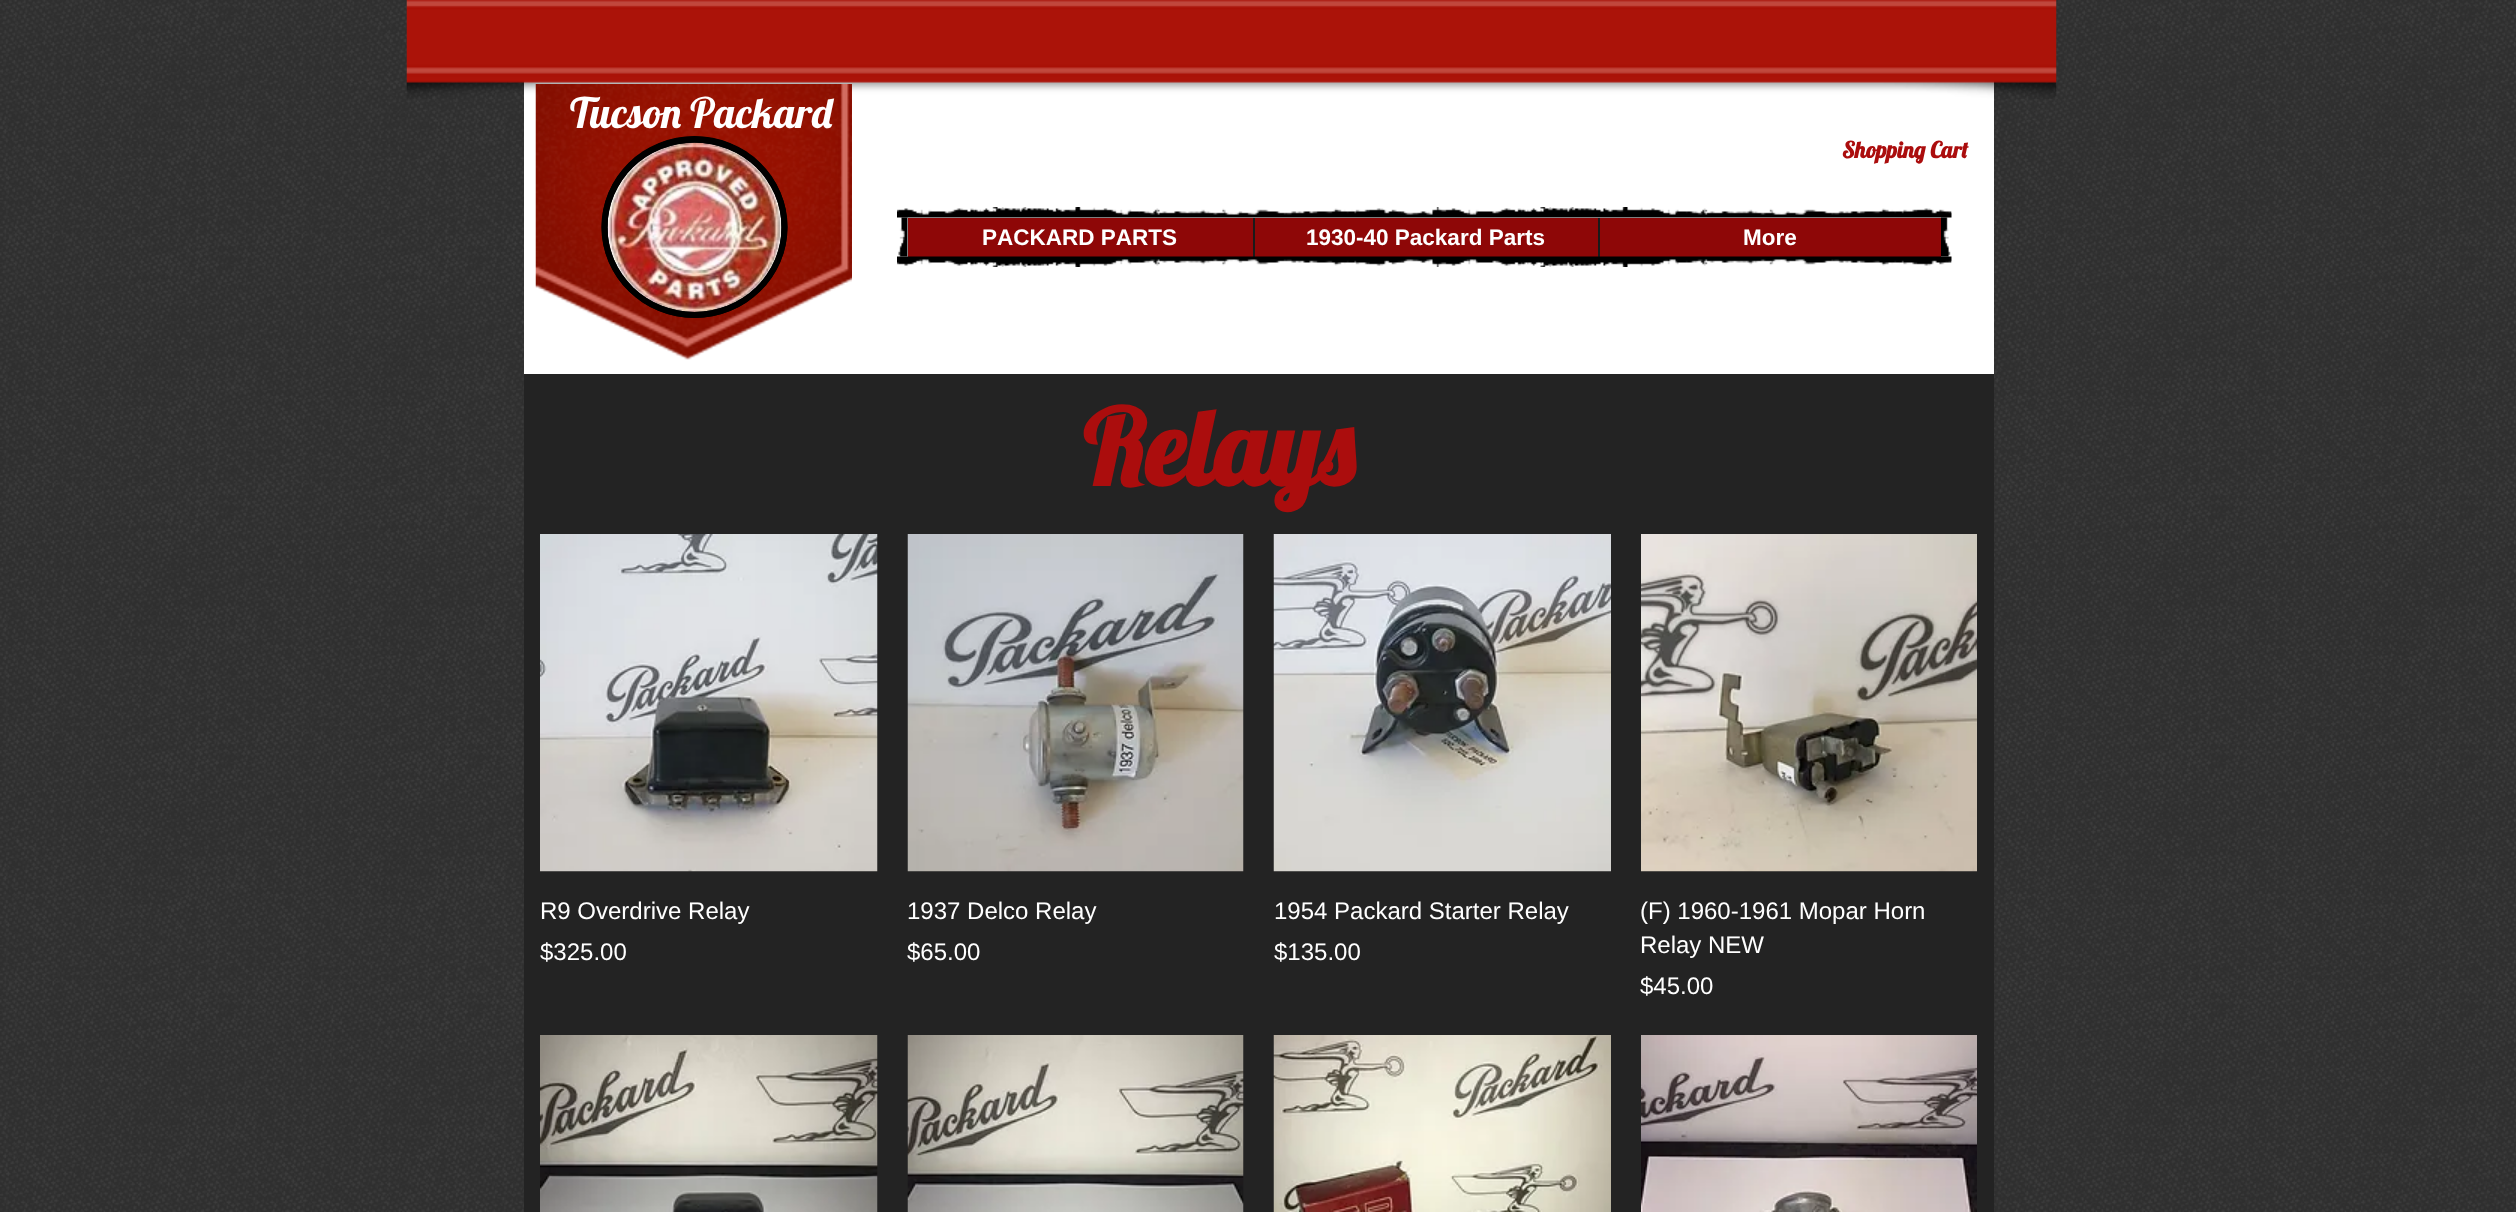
async function draw(canvas) {
  canvas.width = 2516
  canvas.height = 1212
  const ctx = canvas.getContext('2d')
  ctx.miterLimit = 4
  ctx.fontKerning = 'none'
  async function loadImage(src) {
    const img = new Image()
    img.src = src
    await img.decode()
    return img
  }

  ctx.fillStyle = '#2f2f2f'
  ctx.fillRect(0, 0, 2516, 1212)
  ctx.drawImage(await loadImage('image0.png'), 0, 0, 2516, 1212)
  ctx.fillStyle = '#fff'
  ctx.fillRect(524, 80, 1470, 294)
  ctx.drawImage(await loadImage('image1.png'), 406, 0, 1651, 99)
  ctx.drawImage(await loadImage('image2.png'), 535, 84, 317, 276)
  ctx.font = '42px Lobster'
  ctx.fillText('Tucson Packard', 570, 128)
  ctx.fillStyle = '#000'
  ctx.beginPath()
  ctx.ellipse(694.5, 227, 93, 91, 0, 0, 2 * Math.PI)
  ctx.fill()
  ctx.beginPath()
  ctx.moveTo(694.5, 139.5)
  ctx.bezierCurveTo(744, 139.5, 784.5, 179, 784.5, 227)
  ctx.bezierCurveTo(784.5, 275.5, 744, 315, 694.5, 315)
  ctx.bezierCurveTo(645, 315, 604.5, 275.5, 604.5, 227)
  ctx.bezierCurveTo(604.5, 179, 645, 139.5, 694.5, 139.5)
  ctx.closePath()
  ctx.strokeStyle = '#000'
  ctx.lineWidth = 6
  ctx.stroke()
  ctx.drawImage(await loadImage('image3.png'), 607, 142, 175, 170)
  ctx.font = 'bold 22.5px Lobster'
  ctx.fillStyle = '#ab0d0d'
  ctx.fillText('Shopping Cart', 1842, 158)
  ctx.drawImage(await loadImage('image4.png'), 897, 207, 1055, 11)
  ctx.drawImage(await loadImage('image5.png'), 898, 217, 10, 40)
  ctx.fillStyle = '#8e0707'
  ctx.fillRect(908, 218, 1033, 39)
  ctx.font = 'bold 22.5px Liberation Sans'
  ctx.fillStyle = '#fff'
  ctx.fillText('PACKARD PARTS', 982, 245)
  ctx.fillStyle = '#1a1a1a'
  ctx.fillRect(1253, 218, 2, 39)
  ctx.fillStyle = '#fff'
  ctx.fillText('1930-40 Packard Parts', 1306, 245)
  ctx.fillStyle = '#1a1a1a'
  ctx.fillRect(1598, 218, 2, 39)
  ctx.fillStyle = '#fff'
  ctx.fillText('More', 1743, 245)
  ctx.drawImage(await loadImage('image6.png'), 1941, 217, 10, 40)
  ctx.drawImage(await loadImage('image7.png'), 897, 256, 1055, 11)
  ctx.fillStyle = '#232323'
  ctx.fillRect(524, 374, 1470, 838)
  ctx.font = 'bold 105px Lobster'
  ctx.fillStyle = '#ab0d0d'
  ctx.fillText('Relays', 1083, 486)
  ctx.drawImage(await loadImage('image8.png'), 540, 534, 338, 338)
  ctx.font = '24px Liberation Sans'
  ctx.fillStyle = '#fff'
  ctx.fillText('R9 Overdrive Relay', 540, 919)
  ctx.fillText('$325.00', 540, 960)
  ctx.drawImage(await loadImage('image9.png'), 907, 534, 337, 338)
  ctx.fillText('1937 Delco Relay', 907, 919)
  ctx.fillText('$65.00', 907, 960)
  ctx.drawImage(await loadImage('image10.png'), 1273, 534, 338, 338)
  ctx.fillText('1954 Packard Starter Relay', 1274, 919)
  ctx.fillText('$135.00', 1274, 960)
  ctx.drawImage(await loadImage('image11.png'), 1641, 534, 336, 338)
  ctx.fillText('(F) 1960-1961 Mopar Horn', 1640, 919)
  ctx.fillText('Relay NEW', 1640, 953)
  ctx.fillText('$45.00', 1640, 994)
  ctx.drawImage(await loadImage('image12.png'), 540, 1035, 338, 177)
  ctx.drawImage(await loadImage('image13.png'), 907, 1035, 337, 177)
  ctx.drawImage(await loadImage('image14.png'), 1273, 1035, 338, 177)
  ctx.drawImage(await loadImage('image15.png'), 1641, 1035, 336, 177)
}

draw(document.querySelector('canvas'))
